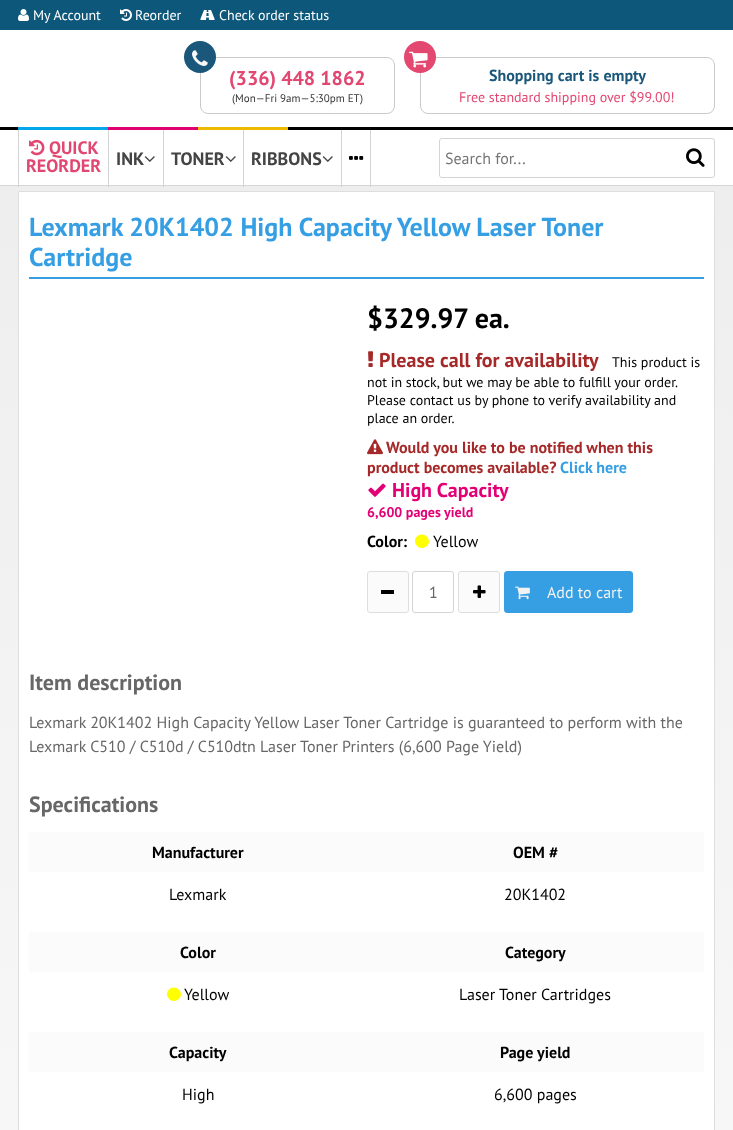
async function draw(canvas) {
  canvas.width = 733
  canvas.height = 1130
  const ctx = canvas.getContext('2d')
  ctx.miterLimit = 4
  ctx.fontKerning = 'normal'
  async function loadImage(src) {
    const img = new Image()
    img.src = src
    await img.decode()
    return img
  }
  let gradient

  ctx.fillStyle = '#fff'
  ctx.fillRect(0, 0, 733, 1130)
  ctx.fillStyle = '#0d577a'
  ctx.fillRect(0, 0, 733, 30)
  ctx.drawImage(await loadImage('image0.png'), 18, 9, 11, 12)
  ctx.font = '14px PT Sans'
  ctx.fillStyle = '#fff'
  ctx.fillText('My Account', 33, 20)
  ctx.drawImage(await loadImage('image1.png'), 120, 9, 12, 12)
  ctx.fillText('Reorder', 135, 20)
  ctx.drawImage(await loadImage('image2.png'), 200, 10, 15, 10)
  ctx.fillText('Check order status', 219, 20)
  ctx.beginPath()
  ctx.roundRect(200.5, 57.5, 194, 56, 7.5)
  ctx.strokeStyle = '#cacaca'
  ctx.stroke()
  ctx.fillStyle = '#1b577a'
  ctx.beginPath()
  ctx.arc(200, 57, 16, 0, 2 * Math.PI)
  ctx.fill()
  ctx.drawImage(await loadImage('image3.png'), 192, 50, 16, 16)
  ctx.font = 'bold 20px PT Sans'
  ctx.fillStyle = '#e14771'
  ctx.fillText('(336) 448 1862', 229, 85)
  ctx.font = '11px PT Sans'
  ctx.fillStyle = '#353535'
  ctx.fillText('(Mon—Fri 9am—5:30pm ET)', 232, 102)
  ctx.beginPath()
  ctx.roundRect(420.5, 57.5, 294, 56, 7.5)
  ctx.stroke()
  ctx.fillStyle = '#e34870'
  ctx.beginPath()
  ctx.arc(420, 57, 16, 0, 2 * Math.PI)
  ctx.fill()
  ctx.drawImage(await loadImage('image4.png'), 409, 51, 19, 17)
  ctx.font = 'bold 16px PT Sans'
  ctx.fillStyle = '#1b577a'
  ctx.fillText('Shopping cart is empty', 489, 81)
  ctx.font = '14px PT Sans'
  ctx.fillStyle = '#e14771'
  ctx.fillText('Free standard shipping over $99.00!', 459, 102)
  ctx.fillStyle = '#000'
  ctx.fillRect(0, 127, 733, 3)
  ctx.fillStyle = '#00a6ea'
  ctx.fillRect(18, 127, 90, 3)
  ctx.fillStyle = '#e00072'
  ctx.fillRect(108, 127, 90, 3)
  ctx.fillStyle = '#edba00'
  ctx.fillRect(198, 127, 90, 3)
  ctx.fillStyle = '#d5d5d5'
  ctx.fillRect(0, 185, 733, 1)
  gradient = ctx.createLinearGradient(366, 186, 367, 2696)
  gradient.addColorStop(0, '#eee')
  gradient.addColorStop(0.72, '#fff')
  gradient.addColorStop(1, '#fff')
  ctx.fillStyle = gradient
  ctx.fillRect(0, 186, 733, 944)
  ctx.fillStyle = '#d5d5d5'
  ctx.fillRect(108, 130, 1, 57)
  ctx.fillRect(18, 130, 1, 57)
  ctx.drawImage(await loadImage('image5.png'), 29, 139, 16, 17)
  ctx.font = 'bold 18px PT Sans'
  ctx.fillStyle = '#e14771'
  ctx.fillText('QUICK', 49, 154)
  ctx.fillText('REORDER', 26, 172)
  ctx.fillStyle = '#d5d5d5'
  ctx.fillRect(163, 130, 1, 57)
  ctx.fillStyle = '#444'
  ctx.fillText('INK', 116, 165)
  ctx.drawImage(await loadImage('image6.png'), 144, 156, 11, 6)
  ctx.fillStyle = '#d5d5d5'
  ctx.fillRect(243, 130, 1, 57)
  ctx.fillStyle = '#444'
  ctx.fillText('TONER', 171, 165)
  ctx.drawImage(await loadImage('image6.png'), 225, 156, 11, 6)
  ctx.fillStyle = '#d5d5d5'
  ctx.fillRect(341, 130, 1, 57)
  ctx.fillStyle = '#444'
  ctx.fillText('RIBBONS', 251, 165)
  ctx.drawImage(await loadImage('image6.png'), 322, 156, 11, 6)
  ctx.fillStyle = '#d5d5d5'
  ctx.fillRect(370, 130, 1, 57)
  ctx.drawImage(await loadImage('image7.png'), 349, 156, 15, 4)
  ctx.beginPath()
  ctx.roundRect(439.5, 138.5, 275, 39, 2.5)
  ctx.strokeStyle = '#d4d4d4'
  ctx.stroke()
  ctx.font = '16px PT Sans'
  ctx.fillStyle = '#757575'
  ctx.fillText('Search for...', 445, 164)
  ctx.drawImage(await loadImage('image8.png'), 686, 148, 19, 19)
  ctx.fillStyle = '#fff'
  ctx.beginPath()
  ctx.rect(18.5, 191.5, 696, 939)
  ctx.fill()
  ctx.strokeStyle = '#dedede'
  ctx.stroke()
  ctx.fillStyle = '#369fe3'
  ctx.fillRect(29, 277, 675, 2)
  ctx.font = 'bold 26px PT Sans'
  ctx.fillText('Lexmark 20K1402 High Capacity Yellow Laser Toner', 29, 236)
  ctx.fillText('Cartridge', 29, 266)
  ctx.font = 'bold 28px PT Sans'
  ctx.fillStyle = '#000'
  ctx.fillText('$329.97 ea.', 367, 328)
  ctx.drawImage(await loadImage('image9.png'), 368, 351, 6, 16)
  ctx.font = 'bold 20px PT Sans'
  ctx.fillStyle = '#a62929'
  ctx.fillText('Please call for availability', 379, 367)
  ctx.font = '14px PT Sans'
  ctx.fillStyle = '#000'
  ctx.fillText('This product is', 612, 367)
  ctx.fillText('not in stock, but we may be able to fulfill your order.', 367, 387)
  ctx.fillText('Please contact us by phone to verify availability and', 367, 405)
  ctx.fillText('place an order.', 367, 423)
  ctx.drawImage(await loadImage('image10.png'), 367, 439, 16, 16)
  ctx.font = 'bold 16px PT Sans'
  ctx.fillStyle = '#a62929'
  ctx.fillText('Would you like to be notified when this', 386, 453)
  ctx.fillText('product becomes available?', 367, 473)
  ctx.fillStyle = '#369fe3'
  ctx.fillText('Click here', 560, 473)
  ctx.drawImage(await loadImage('image11.png'), 368, 483, 18, 14)
  ctx.font = 'bold 20px PT Sans'
  ctx.fillStyle = '#e30075'
  ctx.fillText('High Capacity', 392, 497)
  ctx.font = 'bold 14px PT Sans'
  ctx.fillText('6,600 pages yield', 367, 517)
  ctx.font = 'bold 16px PT Sans'
  ctx.fillStyle = '#000'
  ctx.fillText('Color:', 367, 547)
  ctx.fillStyle = '#ff0'
  ctx.beginPath()
  ctx.moveTo(428, 538)
  ctx.bezierCurveTo(432.5, 545.5, 420.5, 552.5, 416, 544.5)
  ctx.bezierCurveTo(411.5, 537, 423, 530, 428, 538)
  ctx.closePath()
  ctx.fill()
  ctx.font = '16px PT Sans'
  ctx.fillStyle = '#000'
  ctx.fillText('Yellow', 433, 547)
  ctx.fillStyle = '#fbfbfb'
  ctx.beginPath()
  ctx.roundRect(367.5, 571.5, 41, 41, 2.5)
  ctx.fill()
  ctx.stroke()
  ctx.fillStyle = '#000'
  ctx.fillRect(381, 590, 13, 4)
  ctx.beginPath()
  ctx.roundRect(412.5, 571.5, 41, 41, 2.5)
  ctx.strokeStyle = '#d4d4d4'
  ctx.stroke()
  ctx.fillStyle = '#676767'
  ctx.fillText('1', 429, 598)
  ctx.fillStyle = '#fbfbfb'
  ctx.beginPath()
  ctx.roundRect(458.5, 571.5, 41, 41, 2.5)
  ctx.fill()
  ctx.strokeStyle = '#dedede'
  ctx.stroke()
  ctx.drawImage(await loadImage('image12.png'), 473, 585, 13, 13)
  ctx.fillStyle = '#369fe3'
  ctx.beginPath()
  ctx.roundRect(504.5, 571.5, 128, 41, 2.5)
  ctx.fill()
  ctx.strokeStyle = '#369fe3'
  ctx.stroke()
  ctx.drawImage(await loadImage('image13.png'), 515, 586, 15, 14)
  ctx.fillStyle = '#f2f2f2'
  ctx.fillText('Add to cart', 547, 598)
  ctx.font = 'bold 22px PT Sans'
  ctx.fillStyle = '#676767'
  ctx.fillText('Item description', 29, 690)
  ctx.font = '16px PT Sans'
  ctx.fillText('Lexmark 20K1402 High Capacity Yellow Laser Toner Cartridge is guaranteed to perform with the', 29, 728)
  ctx.fillText('Lexmark C510 / C510d / C510dtn Laser Toner Printers (6,600 Page Yield)', 29, 752)
  ctx.font = 'bold 22px PT Sans'
  ctx.fillText('Specifications', 29, 812)
  ctx.fillStyle = '#fbfbfb'
  ctx.fillRect(29, 832, 675, 40)
  ctx.font = 'bold 16px PT Sans'
  ctx.fillStyle = '#000'
  ctx.fillText('Manufacturer', 152, 858)
  ctx.font = '16px PT Sans'
  ctx.fillText('Lexmark', 169, 900)
  ctx.font = 'bold 16px PT Sans'
  ctx.fillText('OEM #', 513, 858)
  ctx.font = '16px PT Sans'
  ctx.fillText('20K1402', 504, 900)
  ctx.fillStyle = '#fbfbfb'
  ctx.fillRect(29, 932, 675, 40)
  ctx.font = 'bold 16px PT Sans'
  ctx.fillStyle = '#000'
  ctx.fillText('Color', 180, 958)
  ctx.fillStyle = '#ff0'
  ctx.beginPath()
  ctx.moveTo(180, 991)
  ctx.bezierCurveTo(184.5, 998.5, 172.5, 1005.5, 168, 997.5)
  ctx.bezierCurveTo(163.5, 990, 175, 983, 180, 991)
  ctx.closePath()
  ctx.fill()
  ctx.font = '16px PT Sans'
  ctx.fillStyle = '#000'
  ctx.fillText('Yellow', 184, 1000)
  ctx.font = 'bold 16px PT Sans'
  ctx.fillText('Category', 505, 958)
  ctx.font = '16px PT Sans'
  ctx.fillText('Laser Toner Cartridges', 459, 1000)
  ctx.fillStyle = '#fbfbfb'
  ctx.fillRect(29, 1032, 675, 40)
  ctx.font = 'bold 16px PT Sans'
  ctx.fillStyle = '#000'
  ctx.fillText('Capacity', 169, 1058)
  ctx.font = '16px PT Sans'
  ctx.fillText('High', 182, 1100)
  ctx.font = 'bold 16px PT Sans'
  ctx.fillText('Page yield', 500, 1058)
  ctx.font = '16px PT Sans'
  ctx.fillText('6,600 pages', 494, 1100)
}

draw(document.querySelector('canvas'))
